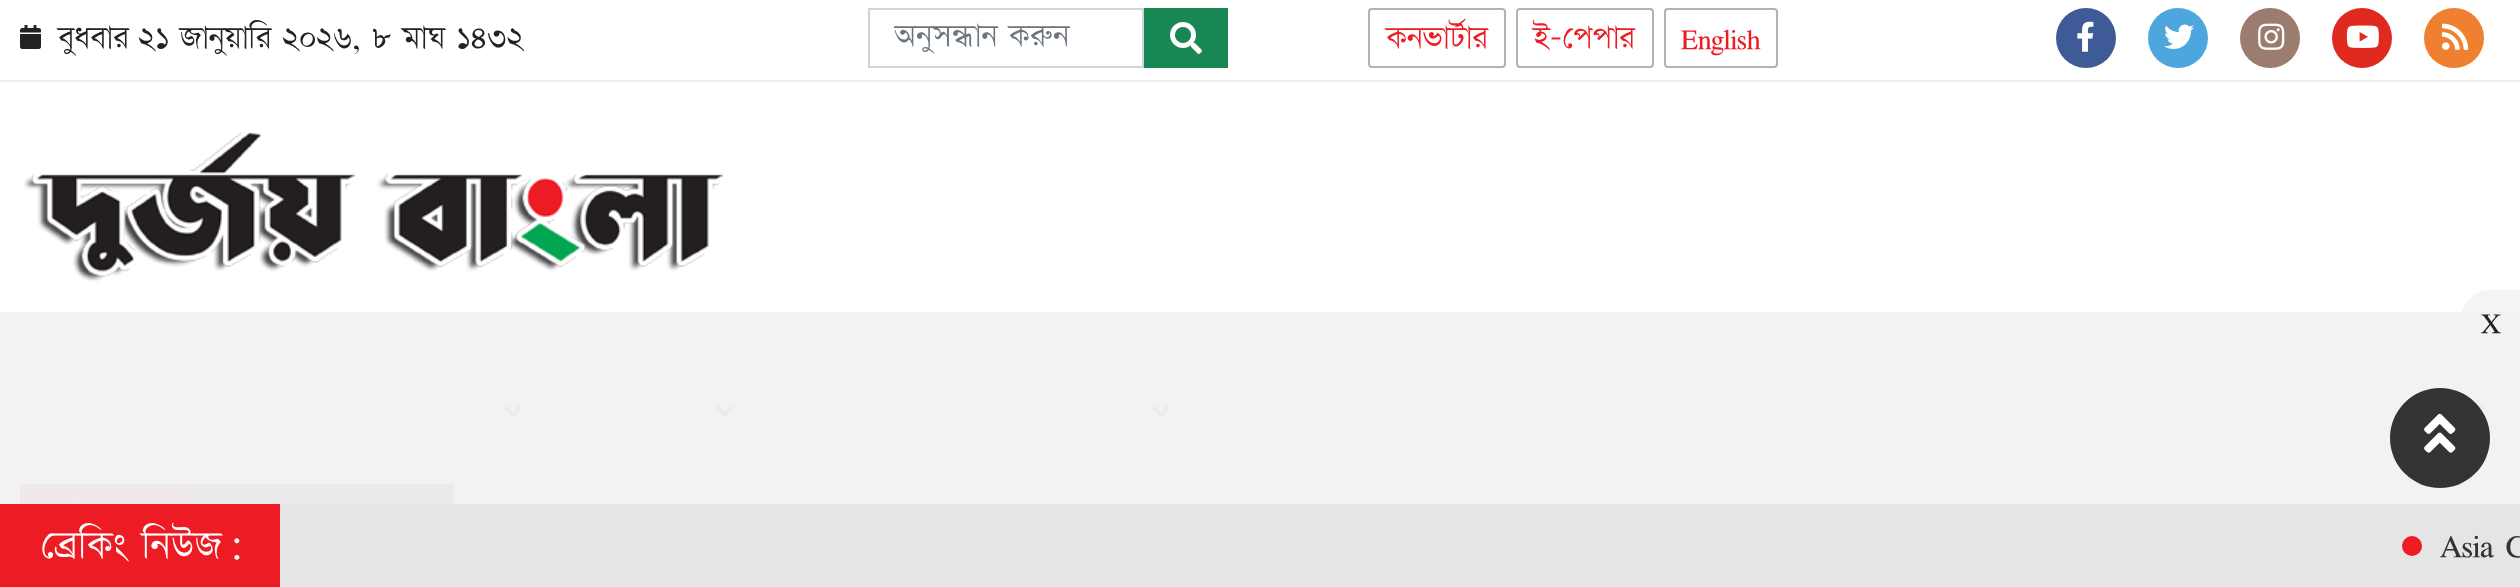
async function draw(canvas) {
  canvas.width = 2520
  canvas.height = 587
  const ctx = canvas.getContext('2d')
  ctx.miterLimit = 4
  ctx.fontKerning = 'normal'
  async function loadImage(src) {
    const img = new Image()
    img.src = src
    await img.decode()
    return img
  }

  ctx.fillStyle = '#fff'
  ctx.fillRect(0, 0, 2520, 587)
  ctx.fillStyle = '#f2f2f2'
  ctx.fillRect(0, 312, 2520, 192)
  ctx.fillStyle = '#eee'
  ctx.fillRect(0, 80, 2520, 2)
  ctx.drawImage(await loadImage('image0.png'), 20, 25, 21, 24)
  ctx.letterSpacing = '-0.4px'
  ctx.font = '32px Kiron'
  ctx.fillStyle = '#222'
  ctx.fillText('বুধবার', 58, 48)
  ctx.wordSpacing = '0.5px'
  ctx.fillText('২১ জানুয়ারি ২০২৬, ৮ মাঘ ১৪৩২', 138, 48)
  ctx.strokeStyle = '#ced4da'
  ctx.lineWidth = 2
  ctx.strokeRect(869, 9, 274, 58)
  ctx.save()
  ctx.beginPath()
  ctx.rect(894, 14, 224, 46)
  ctx.clip()
  ctx.letterSpacing = '0px'
  ctx.wordSpacing = '0px'
  ctx.fillStyle = '#6c757d'
  ctx.fillText('অনুসন্ধান করুন', 894, 46)
  ctx.restore()
  ctx.fillStyle = '#198754'
  ctx.fillRect(1144, 8, 84, 60)
  ctx.drawImage(await loadImage('image1.png'), 1170, 22, 32, 32)
  ctx.beginPath()
  ctx.roundRect(1369, 9, 136, 58, 3)
  ctx.strokeStyle = '#b3b3b3'
  ctx.stroke()
  ctx.wordSpacing = '0px'
  ctx.fillStyle = '#ed1c24'
  ctx.fillText('কনভার্টার', 1386, 48)
  ctx.beginPath()
  ctx.roundRect(1517, 9, 136, 58, 3)
  ctx.stroke()
  ctx.fillText('ই-পেপার', 1533, 48)
  ctx.beginPath()
  ctx.roundRect(1665, 9, 112, 58, 3)
  ctx.stroke()
  ctx.fillText('English', 1681, 48)
  ctx.fillStyle = '#3e5b98'
  ctx.beginPath()
  ctx.arc(2086, 38, 30, 0, 2 * Math.PI)
  ctx.fill()
  ctx.drawImage(await loadImage('image2.png'), 2077, 21, 17, 31)
  ctx.fillStyle = '#4da7de'
  ctx.beginPath()
  ctx.arc(2178, 38, 30, 0, 2 * Math.PI)
  ctx.fill()
  ctx.drawImage(await loadImage('image3.png'), 2164, 24, 30, 25)
  ctx.fillStyle = '#9c7c6e'
  ctx.beginPath()
  ctx.arc(2270, 38, 30, 0, 2 * Math.PI)
  ctx.fill()
  ctx.drawImage(await loadImage('image4.png'), 2258, 23, 27, 27)
  ctx.fillStyle = '#e02a20'
  ctx.beginPath()
  ctx.arc(2362, 38, 30, 0, 2 * Math.PI)
  ctx.fill()
  ctx.drawImage(await loadImage('image5.png'), 2346, 25, 33, 23)
  ctx.fillStyle = '#ee802f'
  ctx.beginPath()
  ctx.arc(2454, 38, 30, 0, 2 * Math.PI)
  ctx.fill()
  ctx.drawImage(await loadImage('image6.png'), 2442, 23, 27, 27)
  ctx.drawImage(await loadImage('image7.png'), 24, 132, 700, 150)
  ctx.drawImage(await loadImage('image8.png'), 504, 405, 18, 13)
  ctx.drawImage(await loadImage('image8.png'), 716, 405, 18, 13)
  ctx.drawImage(await loadImage('image8.png'), 1152, 405, 18, 13)
  ctx.drawImage(await loadImage('image9.png'), 2479, 405, 5, 6)
  ctx.fillStyle = '#f1f1f1d1'
  ctx.beginPath()
  ctx.moveTo(2490, 290)
  ctx.lineTo(2520, 290)
  ctx.lineTo(2520, 358)
  ctx.lineTo(2460, 358)
  ctx.lineTo(2460, 324)
  ctx.bezierCurveTo(2460, 305, 2473, 290, 2490, 290)
  ctx.closePath()
  ctx.fill()
  ctx.fillStyle = '#222'
  ctx.fillText('X', 2481, 332)
  ctx.fillStyle = '#333'
  ctx.beginPath()
  ctx.arc(2440, 438, 50, 0, 2 * Math.PI)
  ctx.fill()
  ctx.drawImage(await loadImage('image10.png'), 2424, 413, 32, 40)
  ctx.fillStyle = '#f1e8e9'
  ctx.fillRect(20, 484, 170, 20)
  ctx.drawImage(await loadImage('image11.png'), 64, 503, 13, 1)
  ctx.fillStyle = '#ebebeb'
  ctx.fillRect(190, 484, 264, 20)
  ctx.fillStyle = '#e5e5e5'
  ctx.fillRect(280, 504, 2240, 83)
  ctx.fillStyle = '#ed1c24'
  ctx.fillRect(0, 504, 280, 83)
  ctx.wordSpacing = '2px'
  ctx.font = '40px Kiron'
  ctx.fillStyle = '#fff'
  ctx.fillText('ব্রেকিং নিউজ:', 40, 558)
  ctx.fillStyle = '#ed1c24'
  ctx.beginPath()
  ctx.arc(2412, 546, 10, 0, 2 * Math.PI)
  ctx.fill()
  ctx.wordSpacing = '0px'
  ctx.font = '36px Kiron'
  ctx.fillStyle = '#333'
  ctx.fillText('Asia C', 2440, 556)
}

draw(document.querySelector('canvas'))
